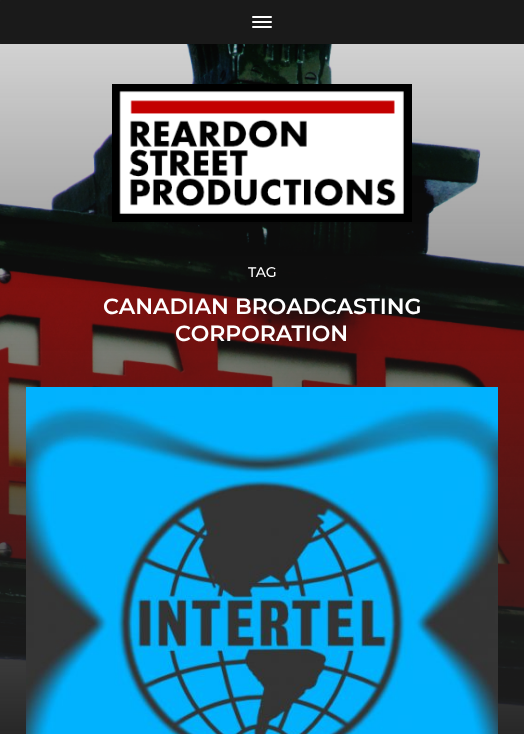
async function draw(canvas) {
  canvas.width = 524
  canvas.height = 734
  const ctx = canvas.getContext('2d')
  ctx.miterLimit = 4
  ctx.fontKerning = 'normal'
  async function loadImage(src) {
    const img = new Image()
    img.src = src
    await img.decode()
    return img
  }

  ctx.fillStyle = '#1d1d1d'
  ctx.fillRect(0, 0, 524, 734)
  ctx.fillStyle = '#1a1a1a'
  ctx.beginPath()
  ctx.roundRect(0, 0, 524, 44, 3)
  ctx.fill()
  ctx.fillStyle = '#fff'
  ctx.beginPath()
  ctx.roundRect(252, 16, 20, 2, 1)
  ctx.fill()
  ctx.beginPath()
  ctx.roundRect(252, 21, 20, 2, 1)
  ctx.fill()
  ctx.beginPath()
  ctx.roundRect(252, 26, 20, 2, 1)
  ctx.fill()
  ctx.drawImage(await loadImage('image0.png'), 0, 44, 524, 690)
  ctx.drawImage(await loadImage('image1.png'), 112, 84, 300, 138)
  ctx.font = '100 14px Montserrat'
  ctx.fillText('TAG', 248, 277)
  ctx.font = '100 22px "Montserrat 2"'
  ctx.fillText('CANADIAN BROADCASTING', 103, 314)
  ctx.fillText('CORPORATION', 175, 341)
  ctx.drawImage(await loadImage('image2.png'), 26, 387, 472, 347)
}

draw(document.querySelector('canvas'))
